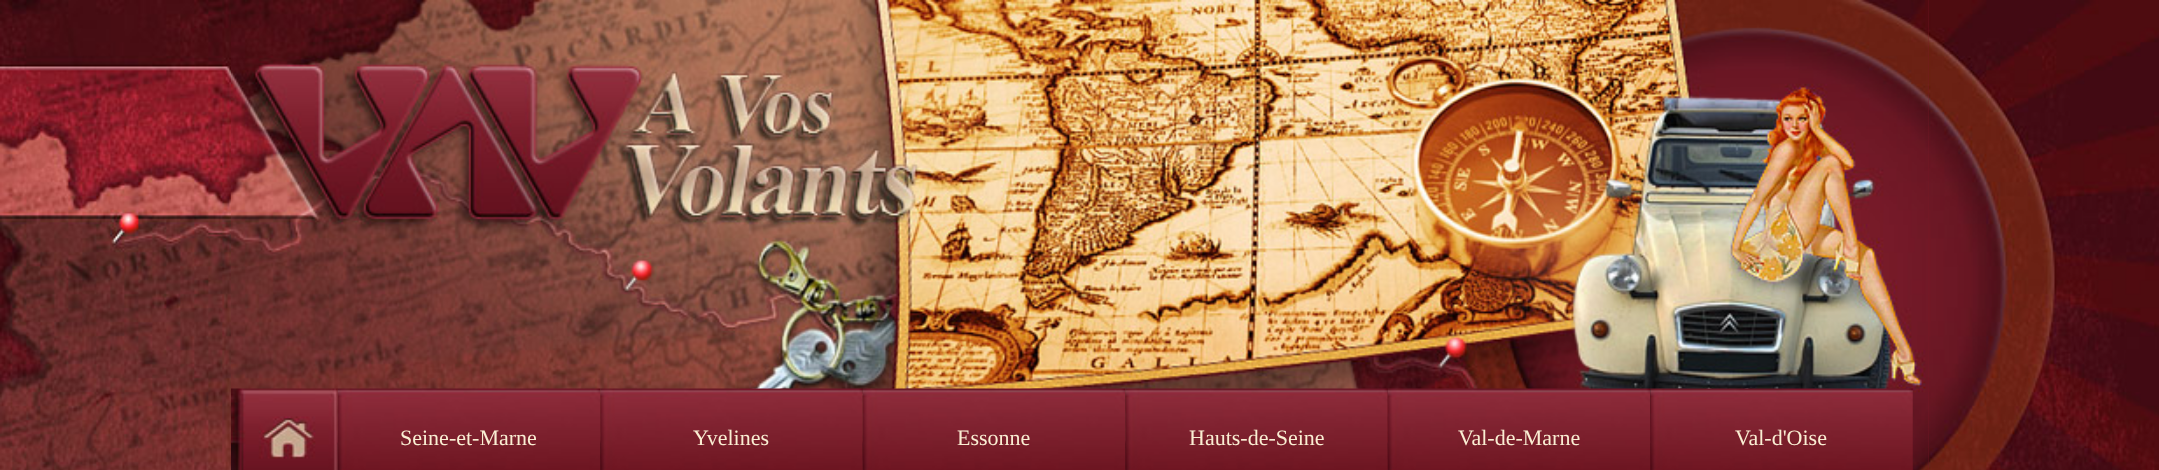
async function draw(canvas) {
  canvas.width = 2159
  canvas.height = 470
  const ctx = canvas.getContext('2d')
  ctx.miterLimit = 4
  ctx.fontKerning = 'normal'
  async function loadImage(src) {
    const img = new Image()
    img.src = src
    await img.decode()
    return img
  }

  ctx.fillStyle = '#fff'
  ctx.fillRect(0, 0, 2159, 470)
  ctx.drawImage(await loadImage('image0.png'), 0, 0, 2159, 470)
  ctx.drawImage(await loadImage('image1.png'), 1928, 0, 1, 470)
  ctx.drawImage(await loadImage('image2.png'), 231, 0, 1698, 470)
  ctx.drawImage(await loadImage('image3.png'), 231, 388, 107, 82)
  ctx.drawImage(await loadImage('image4.png'), 337, 388, 264, 82)
  ctx.font = '22px Liberation Serif'
  ctx.fillStyle = '#faeed3'
  ctx.fillText('Seine-et-Marne', 400, 445)
  ctx.drawImage(await loadImage('image5.png'), 600, 388, 263, 82)
  ctx.fillText('Yvelines', 693, 445)
  ctx.drawImage(await loadImage('image6.png'), 862, 388, 264, 82)
  ctx.fillText('Essonne', 957, 445)
  ctx.drawImage(await loadImage('image7.png'), 1125, 388, 263, 82)
  ctx.fillText('Hauts-de-Seine', 1189, 445)
  ctx.drawImage(await loadImage('image8.png'), 1387, 388, 264, 82)
  ctx.fillText('Val-de-Marne', 1458, 445)
  ctx.drawImage(await loadImage('image9.png'), 1650, 388, 263, 82)
  ctx.fillText('Val-d\'Oise', 1735, 445)
}

draw(document.querySelector('canvas'))
